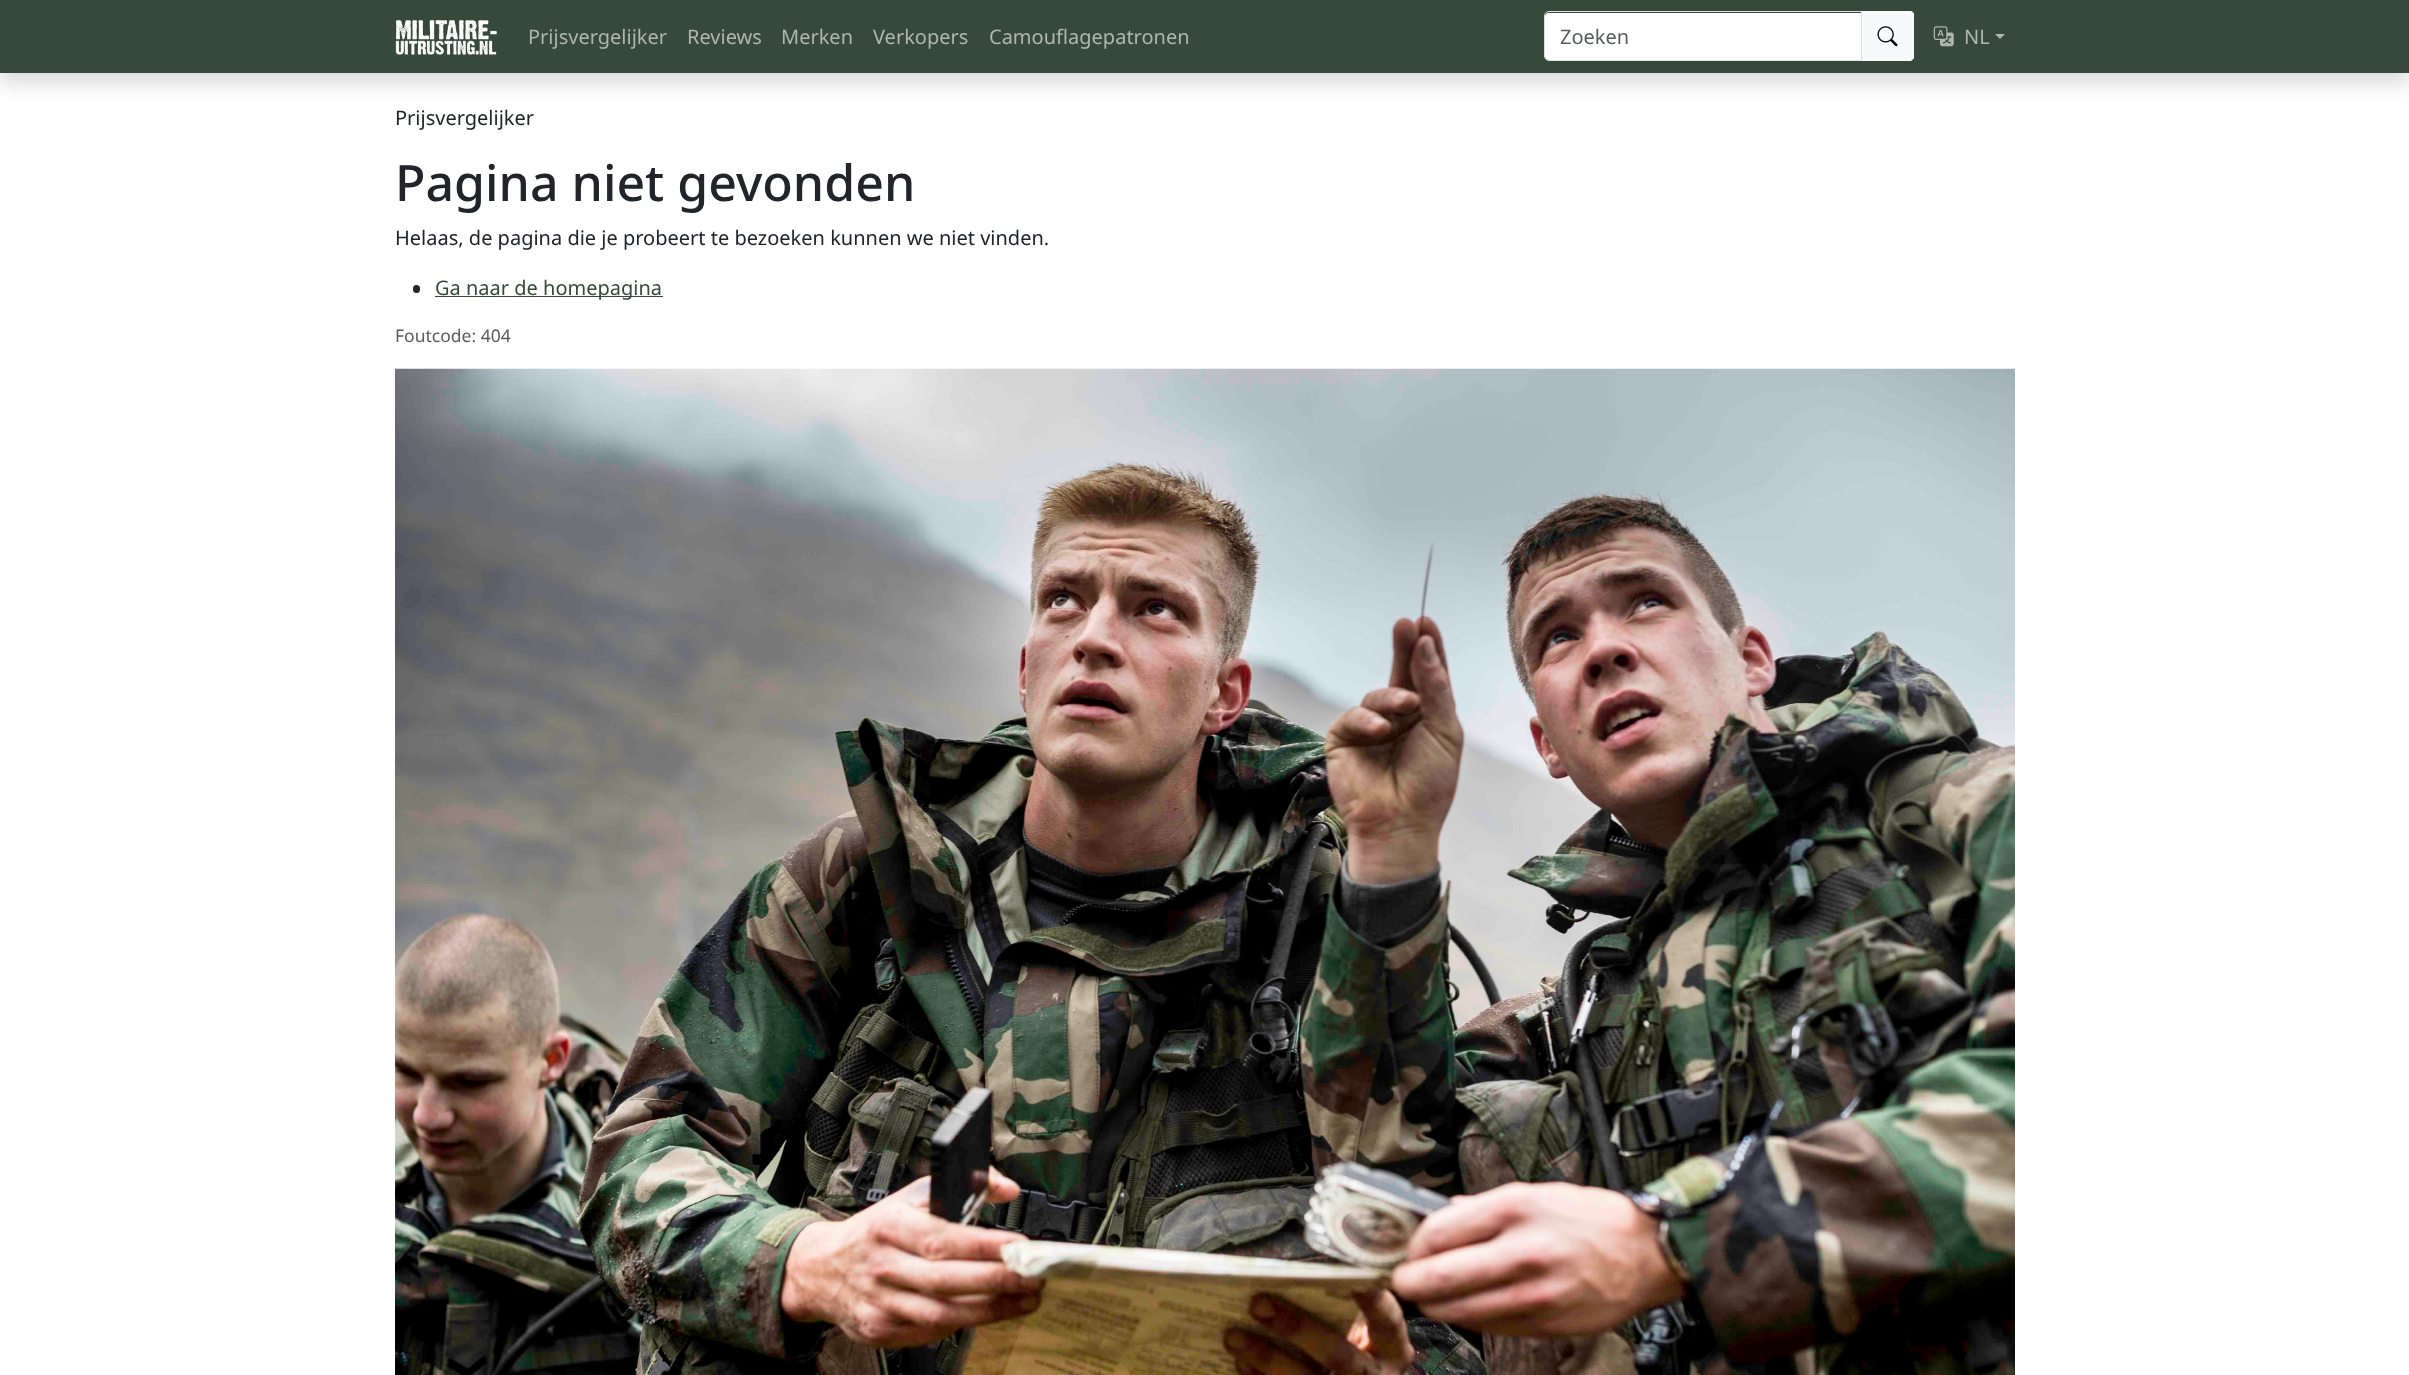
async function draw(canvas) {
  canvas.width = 2409
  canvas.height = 1375
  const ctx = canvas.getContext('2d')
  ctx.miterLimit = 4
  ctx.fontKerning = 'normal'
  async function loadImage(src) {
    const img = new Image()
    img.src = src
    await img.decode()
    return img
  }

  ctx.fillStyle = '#fff'
  ctx.fillRect(0, 0, 2409, 1375)
  ctx.fillStyle = '#00000026'
  ctx.filter = 'blur(10px)'
  ctx.beginPath()
  ctx.rect(0, 10, 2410, 73)
  ctx.fill()
  ctx.filter = 'none'
  ctx.fillStyle = '#37493a'
  ctx.fillRect(0, 0, 2409, 73)
  ctx.drawImage(await loadImage('image0.png'), 395, 20, 102, 35)
  ctx.font = '20px Noto Sans'
  ctx.fillStyle = '#afb6b0'
  ctx.fillText('Prijsvergelijker', 528, 44)
  ctx.fillText('Reviews', 687, 44)
  ctx.fillText('Merken', 781, 44)
  ctx.fillText('Verkopers', 873, 44)
  ctx.fillText('Camouflagepatronen', 989, 44)
  ctx.fillStyle = '#fff'
  ctx.beginPath()
  ctx.roundRect(1545, 13, 316, 47, [4, 0, 0, 4])
  ctx.fill()
  ctx.beginPath()
  ctx.roundRect(1544.5, 11.5, 318, 49, [4.5, 0, 0, 4.5])
  ctx.strokeStyle = '#dee2e6'
  ctx.stroke()
  ctx.fillStyle = '#595c5f'
  ctx.fillText('Zoeken', 1560, 44)
  ctx.fillStyle = '#f8f9fa'
  ctx.beginPath()
  ctx.roundRect(1861, 11, 53, 50, [0, 5, 5, 0])
  ctx.fill()
  ctx.beginPath()
  ctx.moveTo(1862, 12)
  ctx.lineTo(1861, 11)
  ctx.lineTo(1911, 11)
  ctx.lineTo(1913, 12)
  ctx.lineTo(1911, 14)
  ctx.bezierCurveTo(1911, 13, 1910, 12, 1909, 12)
  ctx.closePath()
  ctx.fill()
  ctx.beginPath()
  ctx.moveTo(1914, 58)
  ctx.lineTo(1912, 60)
  ctx.lineTo(1911, 59)
  ctx.bezierCurveTo(1913, 57, 1913, 16, 1911, 14)
  ctx.lineTo(1913, 12)
  ctx.lineTo(1914, 14)
  ctx.closePath()
  ctx.fill()
  ctx.beginPath()
  ctx.moveTo(1912, 60)
  ctx.bezierCurveTo(1912, 61, 1910, 61, 1909, 61)
  ctx.lineTo(1862, 61)
  ctx.lineTo(1862, 60)
  ctx.lineTo(1910, 60)
  ctx.lineTo(1911, 59)
  ctx.closePath()
  ctx.fill()
  ctx.fillStyle = '#dee2e6'
  ctx.beginPath()
  ctx.moveTo(1862, 12)
  ctx.lineTo(1862, 60)
  ctx.lineTo(1861, 61)
  ctx.lineTo(1861, 11)
  ctx.closePath()
  ctx.fill()
  ctx.drawImage(await loadImage('image1.png'), 1877, 26, 21, 21)
  ctx.drawImage(await loadImage('image2.png'), 1933, 26, 21, 21)
  ctx.fillStyle = '#afb6b0'
  ctx.fillText('NL', 1964, 44)
  ctx.beginPath()
  ctx.moveTo(1995, 34)
  ctx.lineTo(2005, 34)
  ctx.lineTo(2000, 39)
  ctx.closePath()
  ctx.fill()
  ctx.fillStyle = '#212529'
  ctx.fillText('Prijsvergelijker', 395, 125)
  ctx.font = '500 50px Noto Sans'
  ctx.fillText('Pagina niet gevonden', 395, 201)
  ctx.font = '20px Noto Sans'
  ctx.fillText('Helaas, de pagina die je probeert te bezoeken kunnen we niet vinden.', 395, 245)
  ctx.beginPath()
  ctx.roundRect(413, 285, 7, 8, 3.5)
  ctx.fill()
  ctx.fillStyle = '#37493a'
  ctx.fillRect(435, 296, 228, 1)
  ctx.fillText('Ga naar de homepagina', 435, 295)
  ctx.font = '17.5px Noto Sans'
  ctx.fillStyle = '#595c5f'
  ctx.fillText('Foutcode: 404', 395, 342)
  ctx.drawImage(await loadImage('image3.png'), 395, 368, 1620, 1007)
}

draw(document.querySelector('canvas'))
